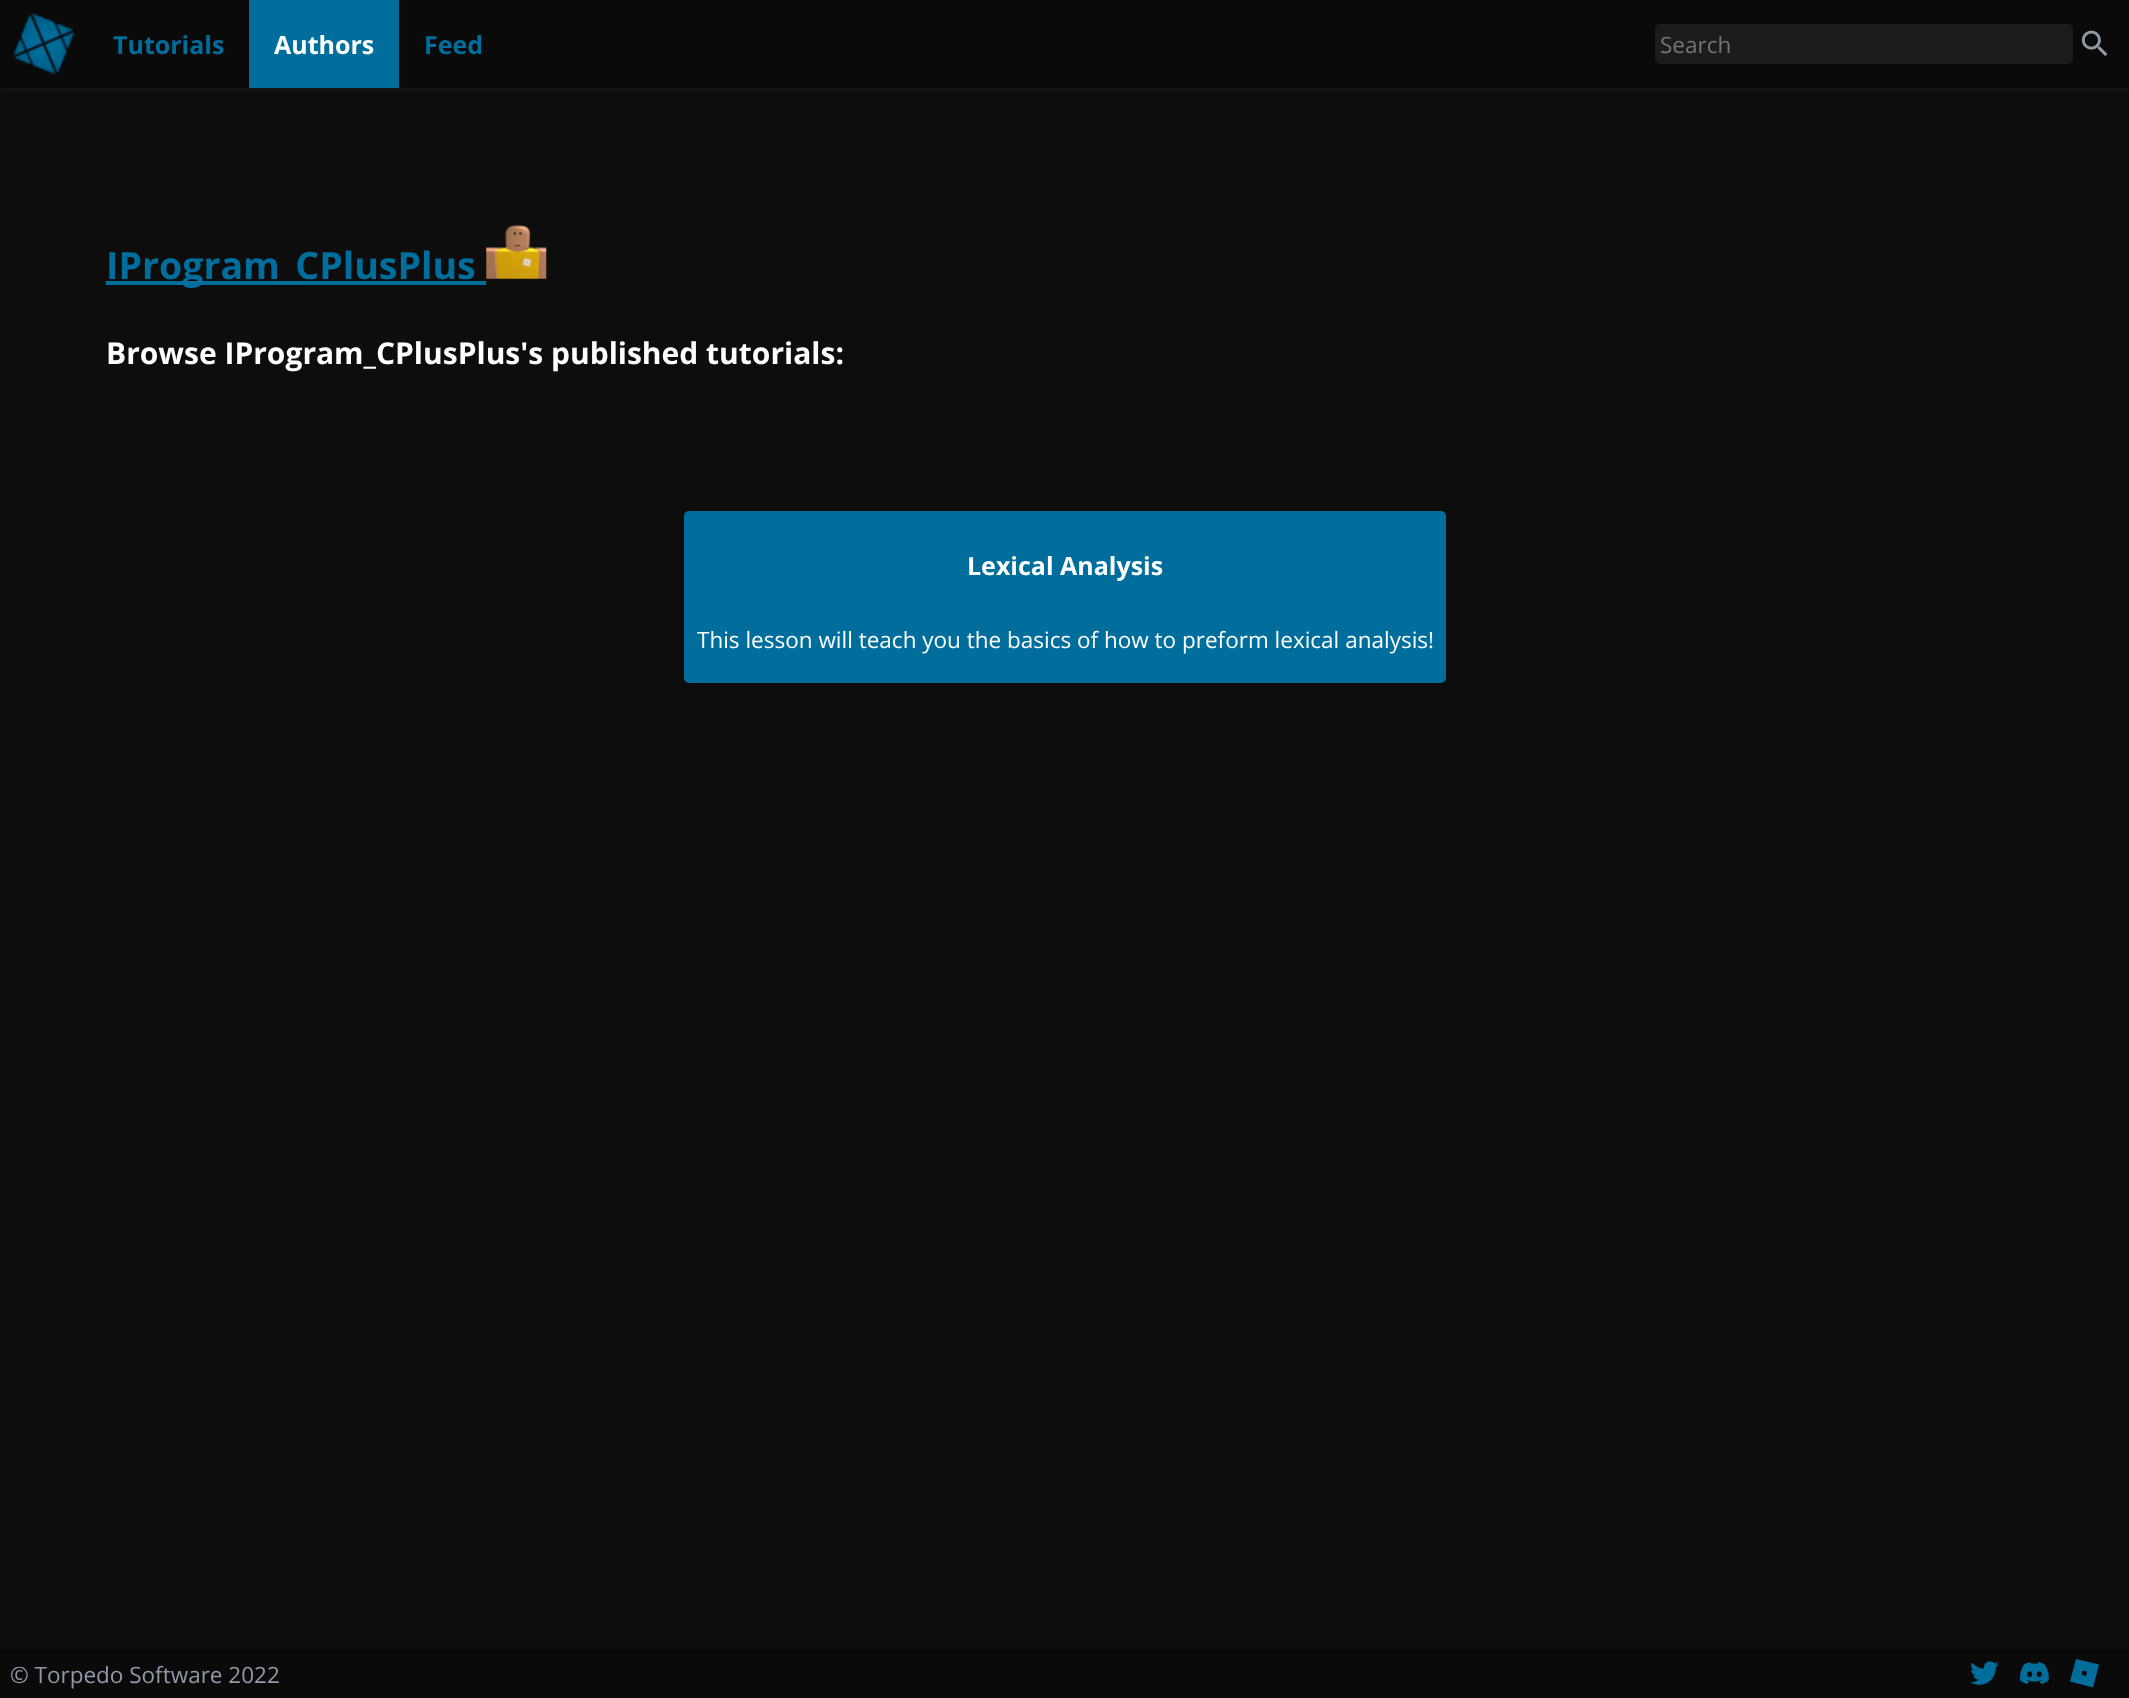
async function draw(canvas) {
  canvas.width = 2129
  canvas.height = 1698
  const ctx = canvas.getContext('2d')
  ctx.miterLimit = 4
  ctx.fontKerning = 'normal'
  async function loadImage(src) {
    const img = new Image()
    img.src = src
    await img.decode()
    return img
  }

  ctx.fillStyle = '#0d0d0e'
  ctx.fillRect(0, 0, 2129, 1698)
  ctx.fillStyle = '#1c1c1d'
  ctx.filter = 'blur(3px)'
  ctx.beginPath()
  ctx.rect(1, 1, 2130, 88)
  ctx.fill()
  ctx.filter = 'none'
  ctx.fillStyle = '#0a0a0a'
  ctx.fillRect(0, 0, 2129, 88)
  ctx.drawImage(await loadImage('image0.png'), 13, 13, 62, 62)
  ctx.font = 'bold 25px Open Sans'
  ctx.fillStyle = '#006e9d'
  ctx.fillText('Tutorials', 113, 54)
  ctx.fillRect(249, 0, 150, 88)
  ctx.fillStyle = '#fdfeff'
  ctx.fillText('Authors', 274, 54)
  ctx.fillStyle = '#006e9d'
  ctx.fillText('Feed', 424, 54)
  ctx.fillStyle = '#1c1c1d'
  ctx.beginPath()
  ctx.roundRect(1655, 24, 418, 40, 5)
  ctx.fill()
  ctx.font = '22.5px Open Sans'
  ctx.fillStyle = '#757575'
  ctx.fillText('Search', 1660, 53)
  ctx.drawImage(await loadImage('image1.png'), 2081, 30, 27, 26)
  ctx.fillStyle = '#006e9d'
  ctx.fillRect(106, 281, 380, 4)
  ctx.font = 'bold 37.5px Open Sans'
  ctx.fillText('IProgram_CPlusPlus', 106, 279)
  ctx.drawImage(await loadImage('image2.png'), 486, 224, 61, 55)
  ctx.font = 'bold 30px Open Sans'
  ctx.fillStyle = '#fdfeff'
  ctx.fillText('Browse IProgram_CPlusPlus\'s published tutorials:', 106, 364)
  ctx.fillStyle = '#006e9d'
  ctx.beginPath()
  ctx.roundRect(684, 511, 762, 172, 5)
  ctx.fill()
  ctx.font = 'bold 25px Open Sans'
  ctx.fillStyle = '#fdfeff'
  ctx.fillText('Lexical Analysis', 967, 575)
  ctx.font = '22.5px Open Sans'
  ctx.fillText('This lesson will teach you the basics of how to preform lexical analysis!', 697, 648)
  ctx.fillStyle = '#0a0a0a'
  ctx.fillRect(0, 1649, 2129, 49)
  ctx.fillStyle = '#9198a7'
  ctx.fillText('© Torpedo Software 2022', 10, 1683)
  ctx.drawImage(await loadImage('image3.png'), 1970, 1661, 29, 24)
  ctx.drawImage(await loadImage('image4.png'), 2020, 1662, 29, 22)
  ctx.fillStyle = '#006d9b'
  ctx.beginPath()
  ctx.moveTo(2086, 1676)
  ctx.lineTo(2081.5, 1675)
  ctx.lineTo(2082.5, 1670.5)
  ctx.lineTo(2087, 1671.5)
  ctx.closePath()
  ctx.moveTo(2076, 1659)
  ctx.lineTo(2070, 1681.5)
  ctx.lineTo(2093, 1687.5)
  ctx.lineTo(2099, 1664.5)
  ctx.closePath()
  ctx.fill()
}

draw(document.querySelector('canvas'))
